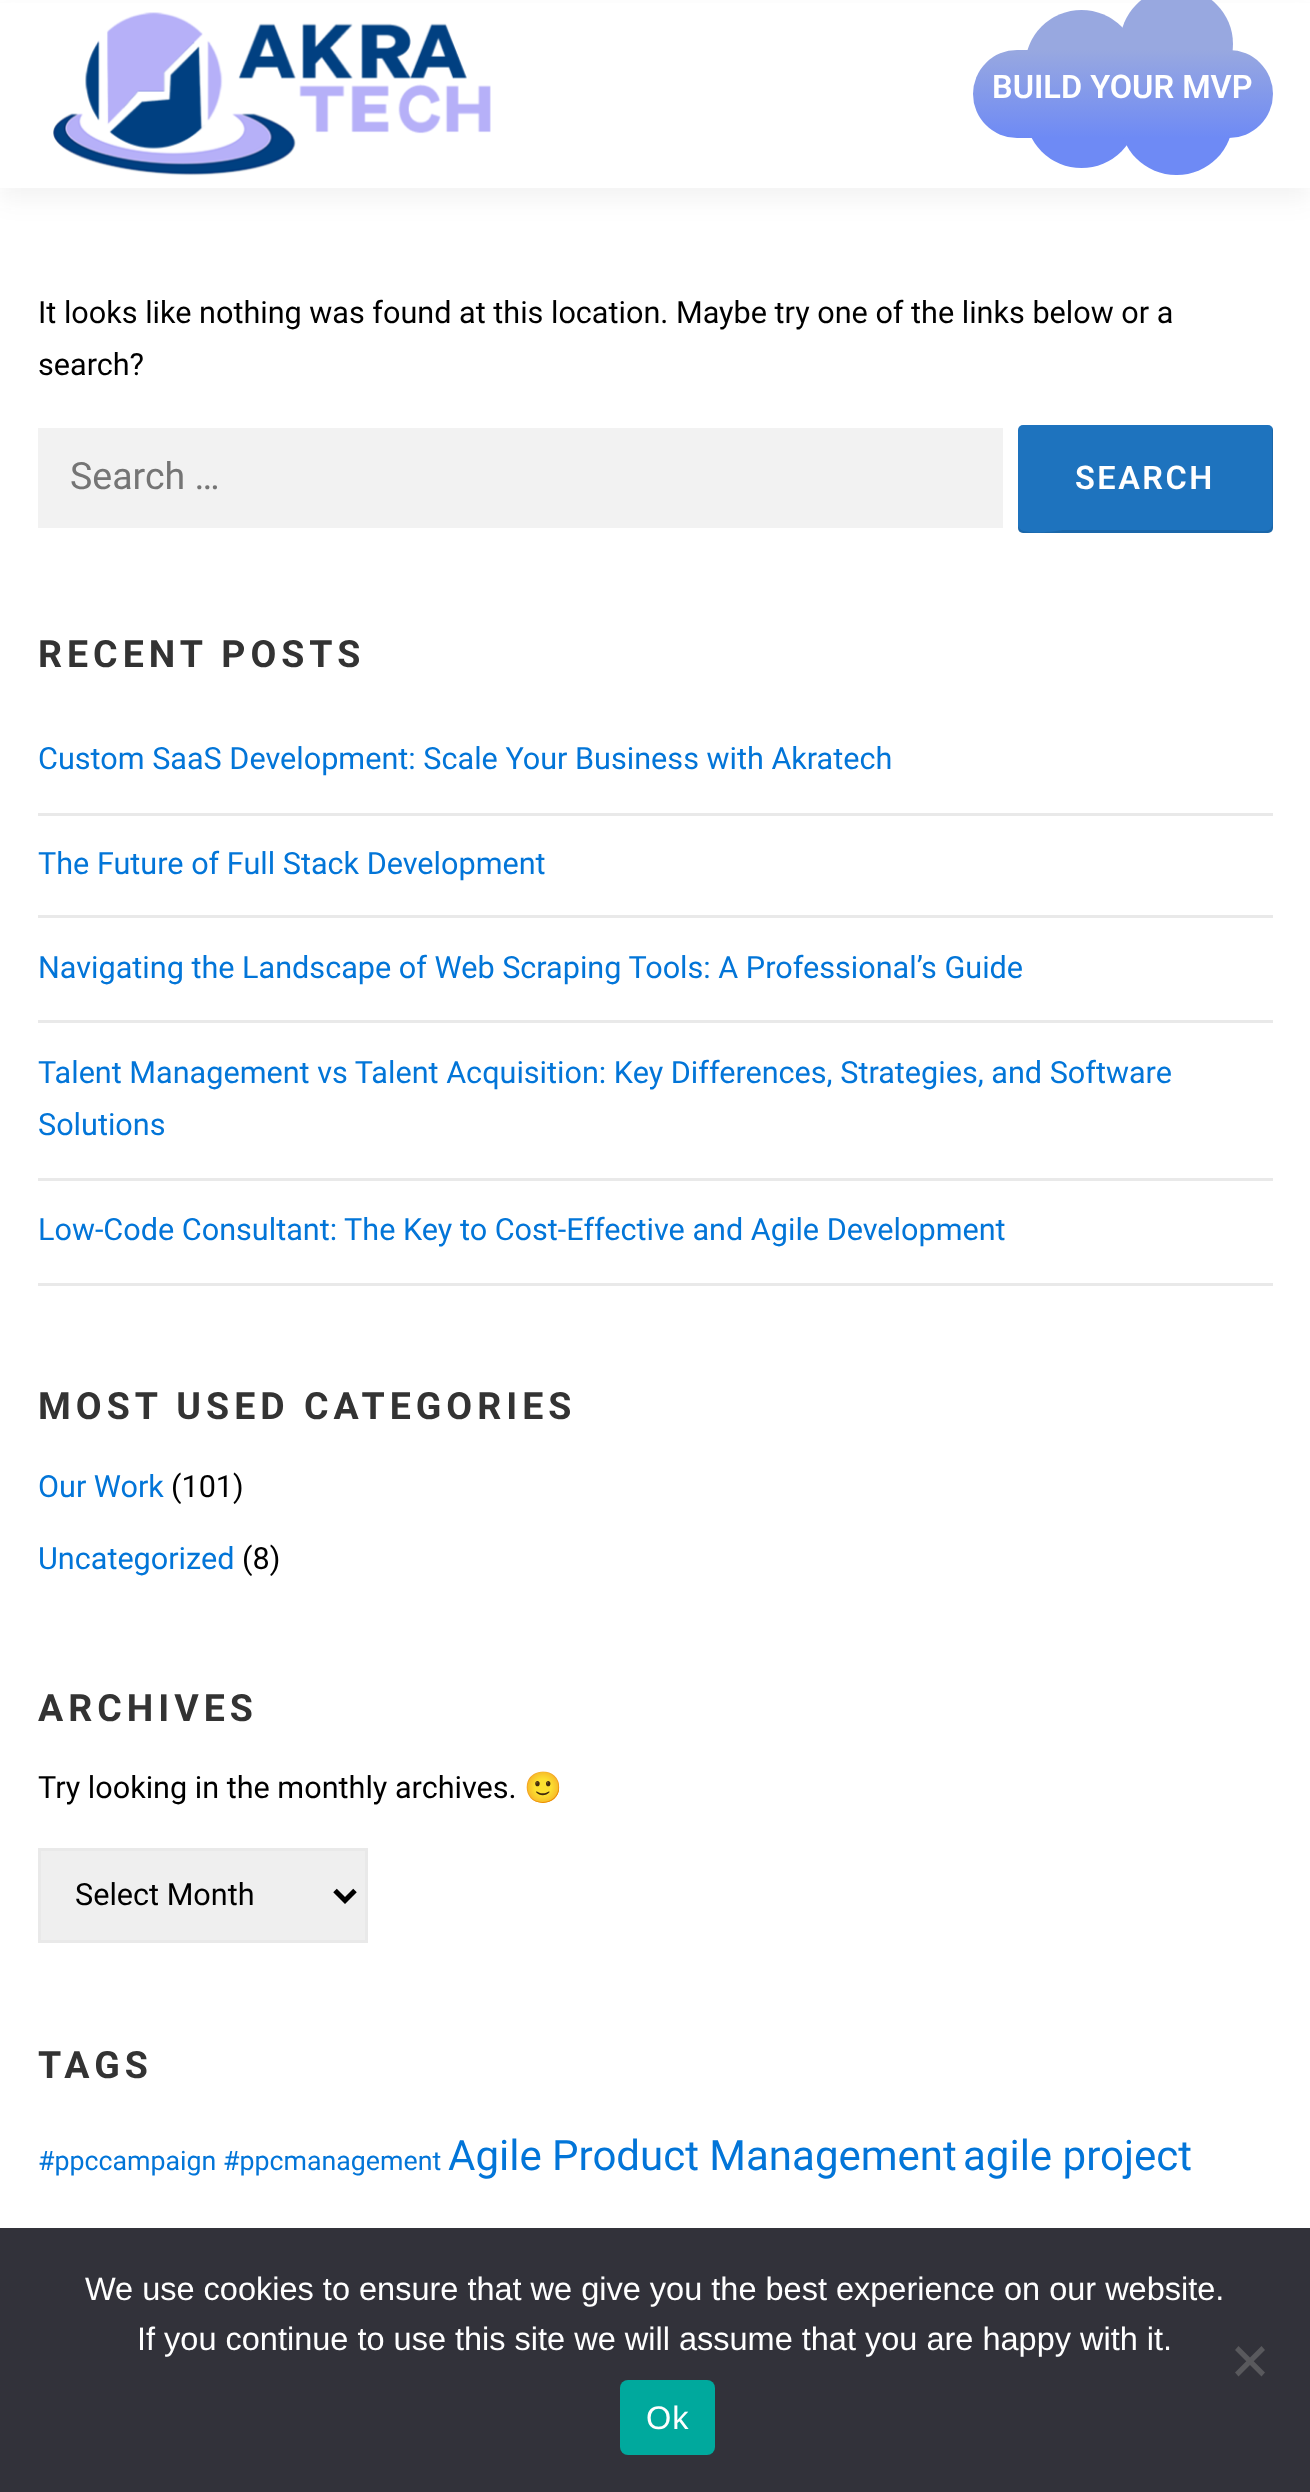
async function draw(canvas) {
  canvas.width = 1310
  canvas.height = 2492
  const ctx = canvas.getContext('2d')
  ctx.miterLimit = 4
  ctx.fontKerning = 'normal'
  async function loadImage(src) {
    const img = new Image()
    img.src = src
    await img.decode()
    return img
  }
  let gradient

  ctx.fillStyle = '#fff'
  ctx.fillRect(0, 0, 1310, 2492)
  ctx.fillStyle = '#3232320f'
  ctx.filter = 'blur(12.5px)'
  ctx.beginPath()
  ctx.rect(0, 13, 1310, 187)
  ctx.fill()
  ctx.filter = 'none'
  ctx.fillStyle = '#fff'
  ctx.fillRect(0, 3, 1310, 185)
  gradient = ctx.createLinearGradient(1176, -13, 1176, 100)
  gradient.addColorStop(0.8, '#98a8e0')
  gradient.addColorStop(1, '#6e8af5')
  ctx.fillStyle = gradient
  ctx.beginPath()
  ctx.roundRect(1120, -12, 113, 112, 56)
  ctx.fill()
  ctx.fillStyle = '#6e8af5'
  ctx.beginPath()
  ctx.arc(1081.5, 111.5, 56.5, 0, 2 * Math.PI)
  ctx.fill()
  ctx.beginPath()
  ctx.roundRect(1120, 63, 113, 112, 56)
  ctx.fill()
  gradient = ctx.createLinearGradient(1081, 10, 1081, 123)
  gradient.addColorStop(0.8, '#98a8e0')
  gradient.addColorStop(1, '#6e8af5')
  ctx.fillStyle = gradient
  ctx.beginPath()
  ctx.arc(1081.5, 66.5, 56.5, 0, 2 * Math.PI)
  ctx.fill()
  gradient = ctx.createLinearGradient(1123, 50, 1123, 138)
  gradient.addColorStop(0, '#98a8e0')
  gradient.addColorStop(1, '#6e8af5')
  ctx.fillStyle = gradient
  ctx.beginPath()
  ctx.roundRect(973, 50, 300, 88, 44)
  ctx.fill()
  ctx.font = '600 32.5px Roboto'
  ctx.fillStyle = '#fff'
  ctx.fillText('BUILD YOUR MVP', 992, 98)
  ctx.drawImage(await loadImage('image0.png'), 53, 12, 438, 164)
  ctx.font = '30.6px Roboto'
  ctx.fillStyle = '#000'
  ctx.fillText('It looks like nothing was found at this location. Maybe try one of the links below or a', 38, 323)
  ctx.fillText('search?', 38, 375)
  ctx.fillStyle = '#f2f2f2'
  ctx.fillRect(38, 428, 965, 100)
  ctx.font = '37.5px Roboto'
  ctx.fillStyle = '#757575'
  ctx.fillText('Search …', 70, 489)
  ctx.fillStyle = '#1e73be'
  ctx.beginPath()
  ctx.roundRect(1018, 425, 255, 108, 5)
  ctx.fill()
  ctx.fillStyle = '#0000001a'
  ctx.beginPath()
  ctx.moveTo(1018, 525)
  ctx.lineTo(1018, 528)
  ctx.bezierCurveTo(1018, 531, 1020, 533, 1023, 533)
  ctx.lineTo(1268, 533)
  ctx.bezierCurveTo(1271, 533, 1273, 531, 1273, 528)
  ctx.lineTo(1273, 430)
  ctx.bezierCurveTo(1273, 429, 1273, 428, 1272, 427)
  ctx.lineTo(1272, 493)
  ctx.bezierCurveTo(1272, 541, 1281, 530, 1227, 530)
  ctx.lineTo(1063, 530)
  ctx.bezierCurveTo(1062, 530, 1018, 538, 1018, 525)
  ctx.closePath()
  ctx.fill()
  ctx.letterSpacing = '2.5px'
  ctx.font = '600 32.5px Roboto'
  ctx.fillStyle = '#fff'
  ctx.fillText('SEARCH', 1075, 489)
  ctx.letterSpacing = '5px'
  ctx.font = 'bold 37.5px Roboto'
  ctx.fillStyle = '#333'
  ctx.fillText('RECENT POSTS', 38, 667)
  ctx.fillStyle = '#e9e9e9'
  ctx.fillRect(38, 813, 1235, 3)
  ctx.letterSpacing = '0px'
  ctx.font = '30.6px Roboto'
  ctx.fillStyle = '#0275d8'
  ctx.fillText('Custom SaaS Development: Scale Your Business with Akratech', 38, 769)
  ctx.fillStyle = '#e9e9e9'
  ctx.fillRect(38, 915, 1235, 3)
  ctx.fillStyle = '#0275d8'
  ctx.fillText('The Future of Full Stack Development', 38, 874)
  ctx.fillStyle = '#e9e9e9'
  ctx.fillRect(38, 1020, 1235, 3)
  ctx.fillStyle = '#0275d8'
  ctx.fillText('Navigating the Landscape of Web Scraping Tools: A Professional’s Guide', 38, 978)
  ctx.fillStyle = '#e9e9e9'
  ctx.fillRect(38, 1178, 1235, 3)
  ctx.fillStyle = '#0275d8'
  ctx.fillText('Talent Management vs Talent Acquisition: Key Differences, Strategies, and Software', 38, 1083)
  ctx.fillText('Solutions', 38, 1135)
  ctx.fillStyle = '#e9e9e9'
  ctx.fillRect(38, 1283, 1235, 3)
  ctx.fillStyle = '#0275d8'
  ctx.fillText('Low-Code Consultant: The Key to Cost-Effective and Agile Development', 38, 1240)
  ctx.letterSpacing = '5px'
  ctx.font = 'bold 37.5px Roboto'
  ctx.fillStyle = '#333'
  ctx.fillText('MOST USED CATEGORIES', 38, 1419)
  ctx.letterSpacing = '0px'
  ctx.font = '30.6px Roboto'
  ctx.fillStyle = '#0275d8'
  ctx.fillText('Our Work', 38, 1497)
  ctx.fillStyle = '#000'
  ctx.fillText('(101)', 171, 1497)
  ctx.fillStyle = '#0275d8'
  ctx.fillText('Uncategorized', 38, 1569)
  ctx.fillStyle = '#000'
  ctx.fillText('(8)', 242, 1569)
  ctx.letterSpacing = '5px'
  ctx.font = 'bold 37.5px Roboto'
  ctx.fillStyle = '#333'
  ctx.fillText('ARCHIVES', 38, 1721)
  ctx.letterSpacing = '0px'
  ctx.font = '30.6px Roboto'
  ctx.fillStyle = '#000'
  ctx.fillText('Try looking in the monthly archives.', 38, 1798)
  ctx.font = '30.6px Noto Color Emoji'
  ctx.fillText('🙂', 524, 1798)
  ctx.fillStyle = '#efefef'
  ctx.beginPath()
  ctx.rect(39.5, 1849.5, 327, 92)
  ctx.fill()
  ctx.strokeStyle = '#e9e9e9'
  ctx.lineWidth = 3
  ctx.stroke()
  ctx.beginPath()
  ctx.moveTo(335, 1890.5)
  ctx.lineTo(345, 1900.5)
  ctx.lineTo(355, 1890.5)
  ctx.strokeStyle = '#000'
  ctx.lineWidth = 5
  ctx.stroke()
  ctx.font = '30.6px Roboto'
  ctx.fillStyle = '#000'
  ctx.fillText('Select Month', 75, 1905)
  ctx.letterSpacing = '5px'
  ctx.font = 'bold 37.5px Roboto'
  ctx.fillStyle = '#333'
  ctx.fillText('TAGS', 38, 2078)
  ctx.letterSpacing = '0px'
  ctx.font = '26.75px Roboto'
  ctx.fillStyle = '#0275d8'
  ctx.fillText('#ppccampaign', 38, 2170)
  ctx.fillText('#ppcmanagement', 223, 2170)
  ctx.font = '42px Roboto'
  ctx.fillText('Agile Product Management', 448, 2170)
  ctx.fillText('agile project', 963, 2170)
  ctx.fillStyle = '#32323a'
  ctx.fillRect(0, 2228, 1310, 264)
  ctx.font = '32.5px Liberation Sans'
  ctx.fillStyle = '#fff'
  ctx.fillText('We use cookies to ensure that we give you the best experience on our website.', 85, 2300)
  ctx.fillText('If you continue to use this site we will assume that you are happy with it.', 137, 2350)
  ctx.fillStyle = '#59595d'
  ctx.beginPath()
  ctx.moveTo(1261.5, 2346)
  ctx.lineTo(1265, 2350)
  ctx.lineTo(1238.5, 2376.5)
  ctx.lineTo(1235, 2372.5)
  ctx.closePath()
  ctx.fill()
  ctx.beginPath()
  ctx.moveTo(1235, 2350)
  ctx.lineTo(1238.5, 2346)
  ctx.lineTo(1265, 2372.5)
  ctx.lineTo(1261.5, 2376.5)
  ctx.closePath()
  ctx.fill()
  ctx.fillStyle = '#00a99d'
  ctx.beginPath()
  ctx.roundRect(620, 2380, 95, 75, 8)
  ctx.fill()
  ctx.letterSpacing = '1px'
  ctx.fillStyle = '#fff'
  ctx.fillText('Ok', 646, 2429)
}

draw(document.querySelector('canvas'))
